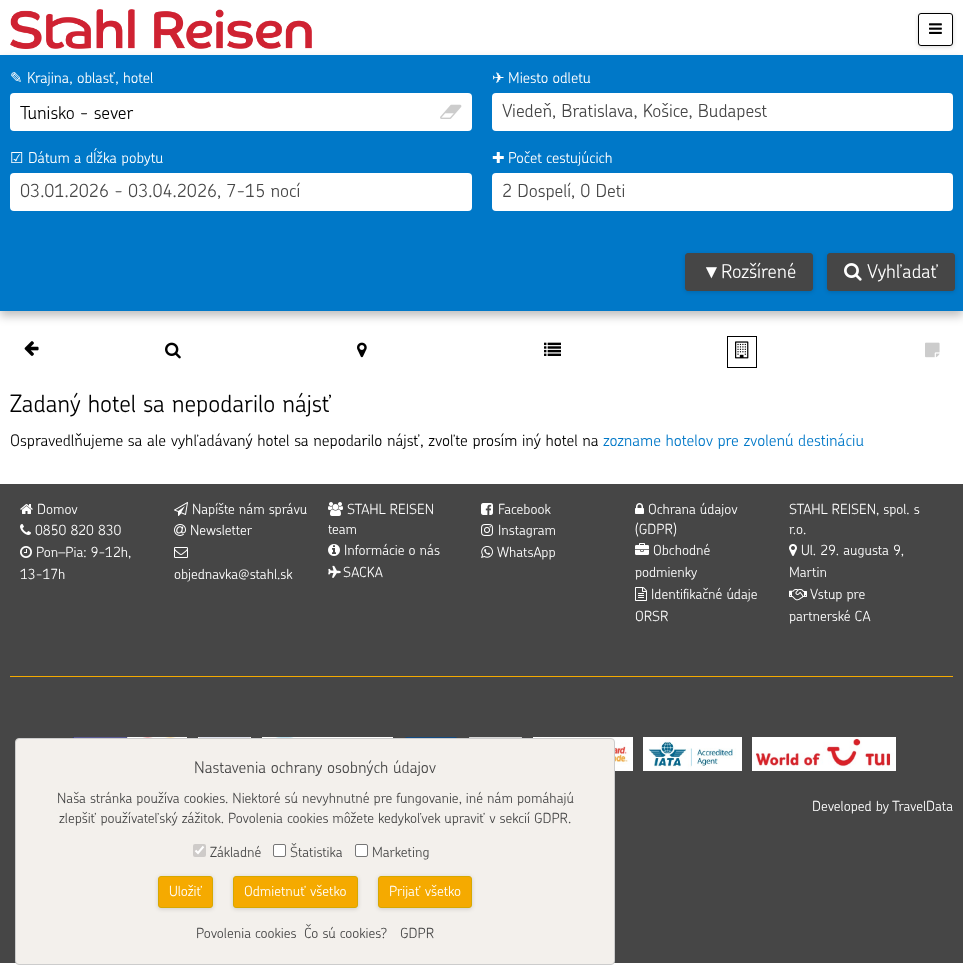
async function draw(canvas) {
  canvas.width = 963
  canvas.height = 980
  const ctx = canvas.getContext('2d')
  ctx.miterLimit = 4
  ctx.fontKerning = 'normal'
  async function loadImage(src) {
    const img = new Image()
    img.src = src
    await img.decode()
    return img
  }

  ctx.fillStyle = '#fff'
  ctx.fillRect(0, 0, 963, 980)
  ctx.drawImage(await loadImage('image0.png'), 10, 9, 302, 40)
  ctx.save()
  ctx.beginPath()
  ctx.moveTo(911, 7)
  ctx.lineTo(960, 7)
  ctx.lineTo(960, 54)
  ctx.lineTo(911, 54)
  ctx.closePath()
  ctx.moveTo(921, 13)
  ctx.lineTo(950, 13)
  ctx.bezierCurveTo(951.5, 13, 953, 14.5, 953, 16)
  ctx.lineTo(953, 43)
  ctx.bezierCurveTo(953, 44.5, 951.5, 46, 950, 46)
  ctx.lineTo(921, 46)
  ctx.bezierCurveTo(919.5, 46, 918, 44.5, 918, 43)
  ctx.lineTo(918, 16)
  ctx.bezierCurveTo(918, 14.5, 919.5, 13, 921, 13)
  ctx.closePath()
  ctx.clip('evenodd')
  ctx.fillStyle = '#00000026'
  ctx.filter = 'blur(2px)'
  ctx.beginPath()
  ctx.roundRect(918, 14, 35, 33, 3)
  ctx.fill()
  ctx.filter = 'none'
  ctx.restore()
  ctx.beginPath()
  ctx.roundRect(918.5, 13.5, 34, 32, 2.5)
  ctx.strokeStyle = '#000'
  ctx.stroke()
  ctx.drawImage(await loadImage('image1.png'), 929, 23, 13, 11)
  ctx.fillStyle = '#00000040'
  ctx.filter = 'blur(5px)'
  ctx.beginPath()
  ctx.rect(0, 60, 963, 256)
  ctx.fill()
  ctx.filter = 'none'
  ctx.fillStyle = '#0078c8'
  ctx.fillRect(0, 55, 963, 256)
  ctx.font = '15px DejaVu Sans'
  ctx.fillStyle = '#fff'
  ctx.fillText('✎', 10, 83)
  ctx.font = '300 15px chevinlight'
  ctx.fillText('Krajina, oblasť, hotel', 27, 83)
  ctx.beginPath()
  ctx.roundRect(10, 93, 462, 38, 4)
  ctx.fill()
  ctx.font = '300 18px chevinlight'
  ctx.fillStyle = '#000'
  ctx.fillText('Tunisko - sever', 20, 119)
  ctx.drawImage(await loadImage('image2.png'), 440, 104, 22, 15)
  ctx.font = '15px DejaVu Sans'
  ctx.fillStyle = '#fff'
  ctx.fillText('✈', 492, 83)
  ctx.font = '300 15px chevinlight'
  ctx.fillText('Miesto odletu', 508, 83)
  ctx.beginPath()
  ctx.roundRect(492, 93, 461, 38, 4)
  ctx.fill()
  ctx.save()
  ctx.beginPath()
  ctx.rect(502, 103, 441, 21)
  ctx.clip()
  ctx.font = '300 18px chevinlight'
  ctx.fillStyle = '#464646'
  ctx.fillText('Viedeň, Bratislava, Košice, Budapest', 502, 117)
  ctx.restore()
  ctx.font = '15px DejaVu Sans'
  ctx.fillText('☑', 10, 163)
  ctx.font = '300 15px chevinlight'
  ctx.fillText('Dátum a dĺžka pobytu', 28, 163)
  ctx.beginPath()
  ctx.roundRect(10, 173, 462, 38, 4)
  ctx.fill()
  ctx.font = '300 18px chevinlight'
  ctx.fillStyle = '#464646'
  ctx.fillText('03.01.2026 - 03.04.2026, 7-15 nocí', 20, 197)
  ctx.font = '15px DejaVu Sans'
  ctx.fillStyle = '#fff'
  ctx.fillText('✚', 492, 163)
  ctx.font = '300 15px chevinlight'
  ctx.fillText('Počet cestujúcich', 508, 163)
  ctx.beginPath()
  ctx.roundRect(492, 173, 461, 38, 4)
  ctx.fill()
  ctx.font = '300 18px chevinlight'
  ctx.fillStyle = '#464646'
  ctx.fillText('2 Dospelí, 0 Deti', 502, 197)
  ctx.fillStyle = '#00000026'
  ctx.filter = 'blur(2px)'
  ctx.beginPath()
  ctx.roundRect(685, 254, 128, 38, 3)
  ctx.fill()
  ctx.filter = 'none'
  ctx.fillStyle = '#464646'
  ctx.beginPath()
  ctx.roundRect(685.5, 253.5, 127, 37, 2.5)
  ctx.fill()
  ctx.strokeStyle = '#464646'
  ctx.stroke()
  ctx.font = '19px Liberation Sans'
  ctx.fillStyle = '#fff'
  ctx.fillText('▼', 702, 278)
  ctx.font = '300 19px chevinlight'
  ctx.fillText('Rozšírené', 721, 278)
  ctx.fillStyle = '#00000026'
  ctx.filter = 'blur(2px)'
  ctx.beginPath()
  ctx.roundRect(827, 254, 128, 38, 3)
  ctx.fill()
  ctx.filter = 'none'
  ctx.fillStyle = '#464646'
  ctx.beginPath()
  ctx.roundRect(827.5, 253.5, 127, 37, 2.5)
  ctx.fill()
  ctx.stroke()
  ctx.drawImage(await loadImage('image3.png'), 844, 263, 18, 18)
  ctx.fillStyle = '#fff'
  ctx.fillText('Vyhľadať', 867, 278)
  ctx.drawImage(await loadImage('image4.png'), 24, 341, 15, 15)
  ctx.drawImage(await loadImage('image5.png'), 165, 342, 16, 17)
  ctx.drawImage(await loadImage('image6.png'), 357, 342, 10, 16)
  ctx.drawImage(await loadImage('image7.png'), 544, 342, 17, 14)
  ctx.strokeStyle = '#000'
  ctx.strokeRect(727.5, 336.5, 29, 31)
  ctx.drawImage(await loadImage('image8.png'), 735, 341, 14, 18)
  ctx.drawImage(await loadImage('image9.png'), 925, 342, 15, 16)
  ctx.font = '300 24px chevinlight'
  ctx.fillStyle = '#000'
  ctx.fillText('Zadaný hotel sa nepodarilo nájsť', 10, 412)
  ctx.font = '300 16px chevinlight'
  ctx.fillText('Ospravedlňujeme sa ale vyhľadávaný hotel sa nepodarilo nájsť, zvoľte prosím iný hotel na', 10, 446)
  ctx.fillStyle = '#0078c8'
  ctx.fillText('zozname hotelov pre zvolenú destináciu', 603, 446)
  ctx.fillStyle = '#464646'
  ctx.fillRect(0, 484, 963, 479)
  ctx.drawImage(await loadImage('image10.png'), 20, 504, 13, 10)
  ctx.font = '300 14px chevinlight'
  ctx.fillStyle = '#fff'
  ctx.fillText('Domov', 37, 514)
  ctx.drawImage(await loadImage('image11.png'), 20, 524, 11, 11)
  ctx.fillText('0850 820 830', 35, 535)
  ctx.drawImage(await loadImage('image12.png'), 20, 546, 12, 12)
  ctx.fillText('Pon–Pia: 9-12h,', 36, 557)
  ctx.fillText('13-17h', 20, 579)
  ctx.drawImage(await loadImage('image13.png'), 174, 502, 14, 14)
  ctx.fillText('Napíšte nám správu', 192, 514)
  ctx.drawImage(await loadImage('image14.png'), 174, 524, 12, 12)
  ctx.fillText('Newsletter', 190, 535)
  ctx.drawImage(await loadImage('image15.png'), 174, 547, 14, 11)
  ctx.fillText('objednavka@stahl.sk', 174, 579)
  ctx.drawImage(await loadImage('image16.png'), 328, 502, 15, 14)
  ctx.fillText('STAHL REISEN', 347, 514)
  ctx.fillText('team', 328, 534)
  ctx.drawImage(await loadImage('image17.png'), 328, 544, 12, 12)
  ctx.fillText('Informácie o nás', 344, 555)
  ctx.drawImage(await loadImage('image18.png'), 328, 565, 13, 13)
  ctx.fillText('SACKA', 343, 577)
  ctx.drawImage(await loadImage('image19.png'), 481, 503, 12, 12)
  ctx.fillText('Facebook', 498, 514)
  ctx.drawImage(await loadImage('image20.png'), 481, 524, 12, 12)
  ctx.fillText('Instagram', 498, 535)
  ctx.drawImage(await loadImage('image21.png'), 481, 546, 12, 12)
  ctx.fillText('WhatsApp', 497, 557)
  ctx.drawImage(await loadImage('image22.png'), 635, 503, 9, 11)
  ctx.fillText('Ochrana údajov', 648, 514)
  ctx.fillText('(GDPR)', 635, 534)
  ctx.drawImage(await loadImage('image23.png'), 635, 543, 14, 12)
  ctx.fillText('Obchodné', 653, 555)
  ctx.fillText('podmienky', 635, 577)
  ctx.drawImage(await loadImage('image24.png'), 635, 587, 12, 14)
  ctx.fillText('Identifikačné údaje', 651, 599)
  ctx.fillText('ORSR', 635, 621)
  ctx.fillText('STAHL REISEN, spol. s', 789, 514)
  ctx.fillText('r.o.', 789, 534)
  ctx.drawImage(await loadImage('image25.png'), 789, 544, 8, 12)
  ctx.fillText('Ul. 29. augusta 9,', 801, 555)
  ctx.fillText('Martin', 789, 577)
  ctx.drawImage(await loadImage('image26.png'), 789, 589, 18, 12)
  ctx.fillText('Vstup pre', 810, 599)
  ctx.fillText('partnerské CA', 789, 621)
  ctx.fillStyle = '#f5aa00'
  ctx.fillRect(10, 676, 943, 1)
  ctx.drawImage(await loadImage('image32.png'), 533, 737, 100, 34)
  ctx.fillStyle = '#f3f0ec'
  ctx.beginPath()
  ctx.roundRect(15.5, 738.5, 599, 226, 3.5)
  ctx.fill()
  ctx.strokeStyle = '#ccc'
  ctx.stroke()
  ctx.font = '300 16px chevinlight'
  ctx.fillStyle = '#464646'
  ctx.fillText('Nastavenia ochrany osobných údajov', 194, 773)
  ctx.font = '300 14px chevinlight'
  ctx.fillText('Naša stránka používa cookies. Niektoré sú nevyhnutné pre fungovanie, iné nám pomáhajú', 57, 803)
  ctx.fillText('zlepšiť používateľský zážitok. Povolenia cookies môžete kedykoľvek upraviť v sekcií GDPR.', 59, 823)
  ctx.fillStyle = '#cecbc9'
  ctx.beginPath()
  ctx.roundRect(193, 844, 13, 13, 2)
  ctx.fill()
  ctx.beginPath()
  ctx.moveTo(195.5, 850.5)
  ctx.lineTo(198, 853)
  ctx.lineTo(203.5, 846.5)
  ctx.strokeStyle = '#fff'
  ctx.lineWidth = 2.1
  ctx.stroke()
  ctx.fillStyle = '#464646'
  ctx.fillText('Základné', 210, 857)
  ctx.fillStyle = '#fff'
  ctx.beginPath()
  ctx.roundRect(273.5, 844.5, 12, 12, 1.5)
  ctx.fill()
  ctx.strokeStyle = '#767676'
  ctx.lineWidth = 1
  ctx.stroke()
  ctx.fillStyle = '#464646'
  ctx.fillText('Štatistika', 290, 857)
  ctx.fillStyle = '#fff'
  ctx.beginPath()
  ctx.roundRect(355.5, 844.5, 12, 12, 1.5)
  ctx.fill()
  ctx.stroke()
  ctx.fillStyle = '#464646'
  ctx.fillText('Marketing', 372, 857)
  ctx.fillStyle = '#00000026'
  ctx.filter = 'blur(2px)'
  ctx.beginPath()
  ctx.roundRect(158, 877, 55, 32, 3)
  ctx.fill()
  ctx.filter = 'none'
  ctx.fillStyle = '#f5aa00'
  ctx.beginPath()
  ctx.roundRect(158.5, 876.5, 54, 31, 2.5)
  ctx.fill()
  ctx.strokeStyle = '#d7a800'
  ctx.stroke()
  ctx.fillStyle = '#fff'
  ctx.fillText('Uložiť', 169, 896)
  ctx.fillStyle = '#00000026'
  ctx.filter = 'blur(2px)'
  ctx.beginPath()
  ctx.roundRect(233, 877, 125, 32, 3)
  ctx.fill()
  ctx.filter = 'none'
  ctx.fillStyle = '#f5aa00'
  ctx.beginPath()
  ctx.roundRect(233.5, 876.5, 124, 31, 2.5)
  ctx.fill()
  ctx.stroke()
  ctx.fillStyle = '#fff'
  ctx.fillText('Odmietnuť všetko', 244, 896)
  ctx.fillStyle = '#00000026'
  ctx.filter = 'blur(2px)'
  ctx.beginPath()
  ctx.roundRect(378, 877, 94, 32, 3)
  ctx.fill()
  ctx.filter = 'none'
  ctx.fillStyle = '#f5aa00'
  ctx.beginPath()
  ctx.roundRect(378.5, 876.5, 93, 31, 2.5)
  ctx.fill()
  ctx.stroke()
  ctx.fillStyle = '#fff'
  ctx.fillText('Prijať všetko', 389, 896)
  ctx.fillStyle = '#464646'
  ctx.fillText('Povolenia cookies', 196, 938)
  ctx.fillText('Čo sú cookies?', 304, 938)
  ctx.fillText('GDPR', 400, 938)
  ctx.drawImage(await loadImage('image27.png'), 73, 737, 114, 1)
  ctx.drawImage(await loadImage('image28.png'), 198, 737, 53, 1)
  ctx.drawImage(await loadImage('image29.png'), 262, 737, 131, 1)
  ctx.drawImage(await loadImage('image30.png'), 404, 737, 54, 1)
  ctx.drawImage(await loadImage('image31.png'), 469, 737, 53, 1)
  ctx.drawImage(await loadImage('image33.png'), 643, 737, 99, 34)
  ctx.drawImage(await loadImage('image34.png'), 752, 737, 144, 34)
  ctx.fillStyle = '#fff'
  ctx.fillText('Developed by', 812, 811)
  ctx.fillText('TravelData', 892, 811)
}

draw(document.querySelector('canvas'))
